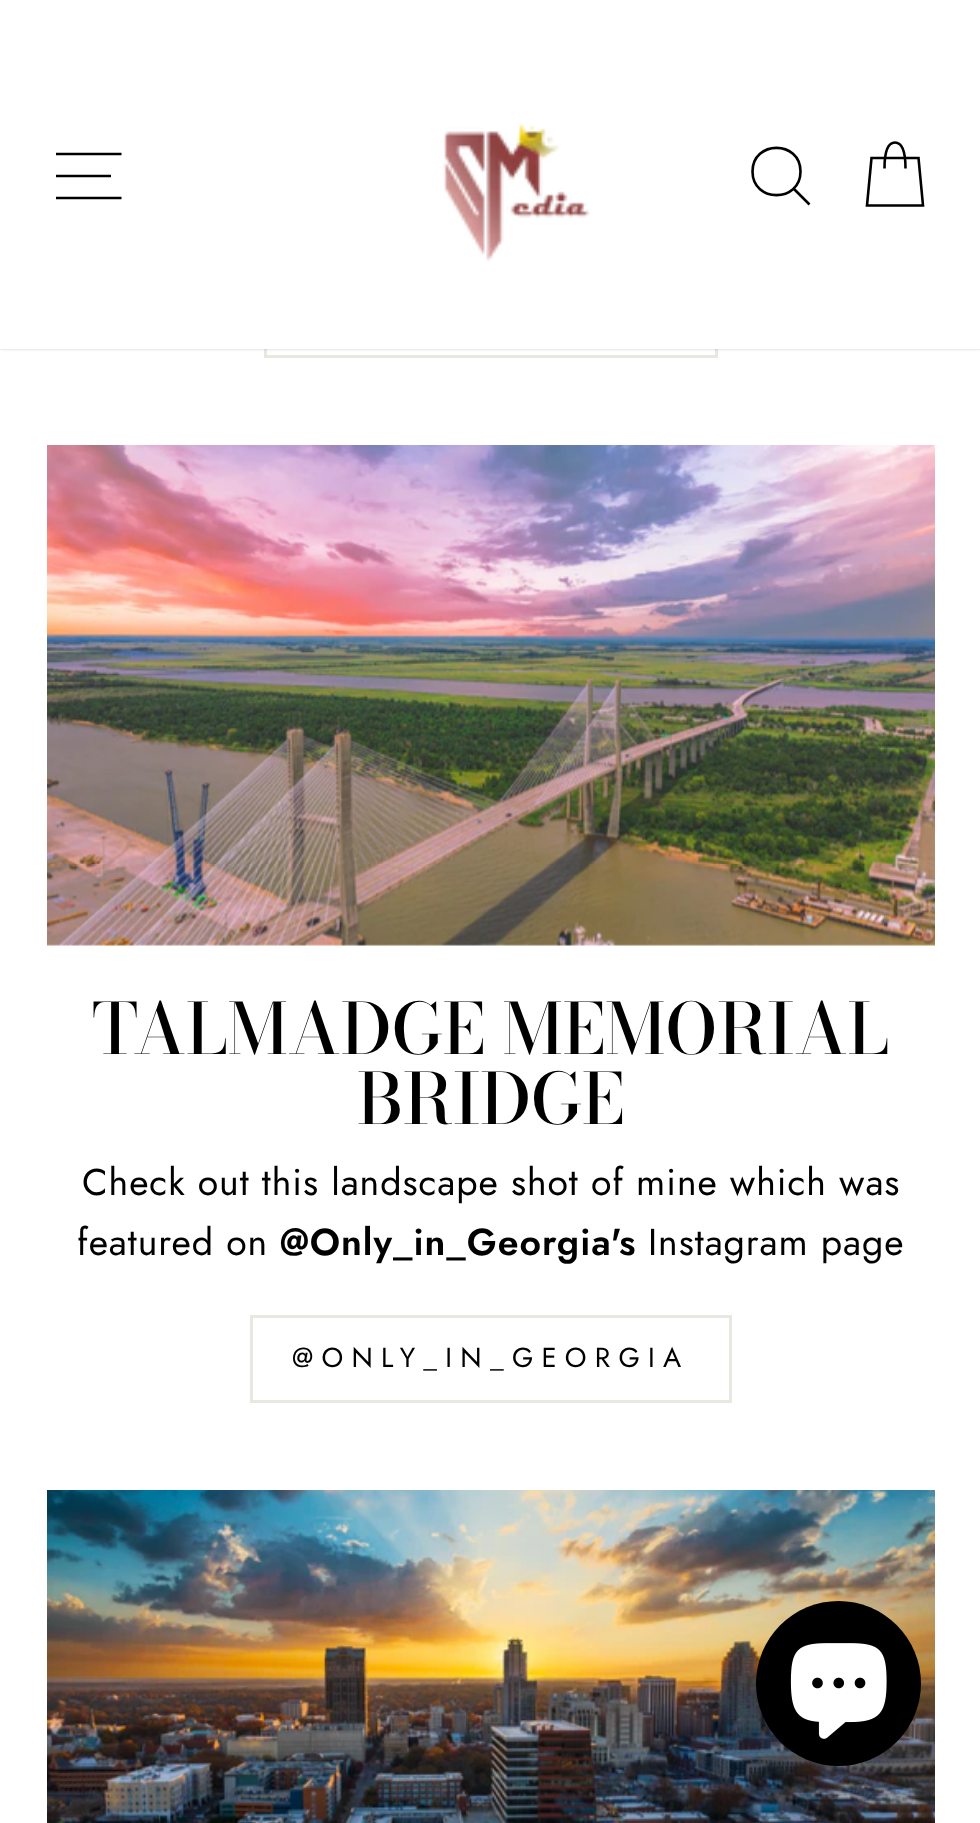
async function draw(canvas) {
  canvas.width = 980
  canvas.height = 1823
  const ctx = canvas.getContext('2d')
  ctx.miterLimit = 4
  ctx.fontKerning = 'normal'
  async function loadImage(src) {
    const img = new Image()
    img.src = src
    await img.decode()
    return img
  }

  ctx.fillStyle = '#fff'
  ctx.fillRect(0, 0, 980, 1823)
  ctx.strokeStyle = '#e8e8e1'
  ctx.lineWidth = 3
  ctx.strokeRect(265.5, 271.5, 451, 85)
  ctx.fillStyle = '#00000033'
  ctx.filter = 'blur(1.5px)'
  ctx.beginPath()
  ctx.rect(0, 0, 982, 349)
  ctx.fill()
  ctx.filter = 'none'
  ctx.fillStyle = '#fff'
  ctx.fillRect(0, 0, 980, 349)
  ctx.beginPath()
  ctx.moveTo(56, 154)
  ctx.lineTo(121.5, 154)
  ctx.moveTo(56, 176)
  ctx.lineTo(111, 176)
  ctx.moveTo(56, 198)
  ctx.lineTo(121.5, 198)
  ctx.strokeStyle = '#000'
  ctx.lineWidth = 2.6
  ctx.stroke()
  ctx.drawImage(await loadImage('image0.png'), 442, 123, 148, 139)
  ctx.beginPath()
  ctx.moveTo(800.5, 171.5)
  ctx.bezierCurveTo(800.5, 203, 752.5, 203, 752.5, 171.5)
  ctx.bezierCurveTo(752.5, 140, 800.5, 140, 800.5, 171.5)
  ctx.closePath()
  ctx.moveTo(809.5, 204.5)
  ctx.lineTo(794, 189)
  ctx.stroke()
  ctx.beginPath()
  ctx.moveTo(884.5, 168.5)
  ctx.bezierCurveTo(884.5, 148, 889.5, 142.5, 895, 142.5)
  ctx.bezierCurveTo(900.5, 142.5, 905.5, 148, 905.5, 168.5)
  ctx.stroke()
  ctx.beginPath()
  ctx.moveTo(871.5, 158)
  ctx.lineTo(918.5, 158)
  ctx.lineTo(923, 205.5)
  ctx.lineTo(867, 205.5)
  ctx.closePath()
  ctx.stroke()
  ctx.drawImage(await loadImage('image1.png'), 47, 445, 888, 501)
  ctx.font = '500 70px Bodoni Moda'
  ctx.fillStyle = '#000'
  ctx.fillText('TALMADGE MEMORIAL', 92, 1054)
  ctx.fillText('BRIDGE', 357, 1124)
  ctx.letterSpacing = '0.95px'
  ctx.font = '37.4px Jost'
  ctx.fillText('Check out this landscape shot of mine which was', 82, 1195)
  ctx.fillText('featured on', 77, 1255)
  ctx.font = '600 37.4px Jost'
  ctx.fillText('@Only_in_Georgia\'s', 280, 1255)
  ctx.font = '37.4px Jost'
  ctx.fillText('Instagram page', 648, 1255)
  ctx.strokeStyle = '#e8e8e1'
  ctx.lineWidth = 3
  ctx.strokeRect(251.5, 1316.5, 479, 85)
  ctx.letterSpacing = '8.25px'
  ctx.font = '27.5px Jost'
  ctx.fillText('@ONLY_IN_GEORGIA', 292, 1367)
  ctx.drawImage(await loadImage('image2.png'), 47, 1490, 888, 333)
  ctx.beginPath()
  ctx.arc(838.5, 1683.5, 82.5, 0, 2 * Math.PI)
  ctx.fill()
  ctx.drawImage(await loadImage('image3.png'), 790, 1643, 97, 96)
}

draw(document.querySelector('canvas'))
